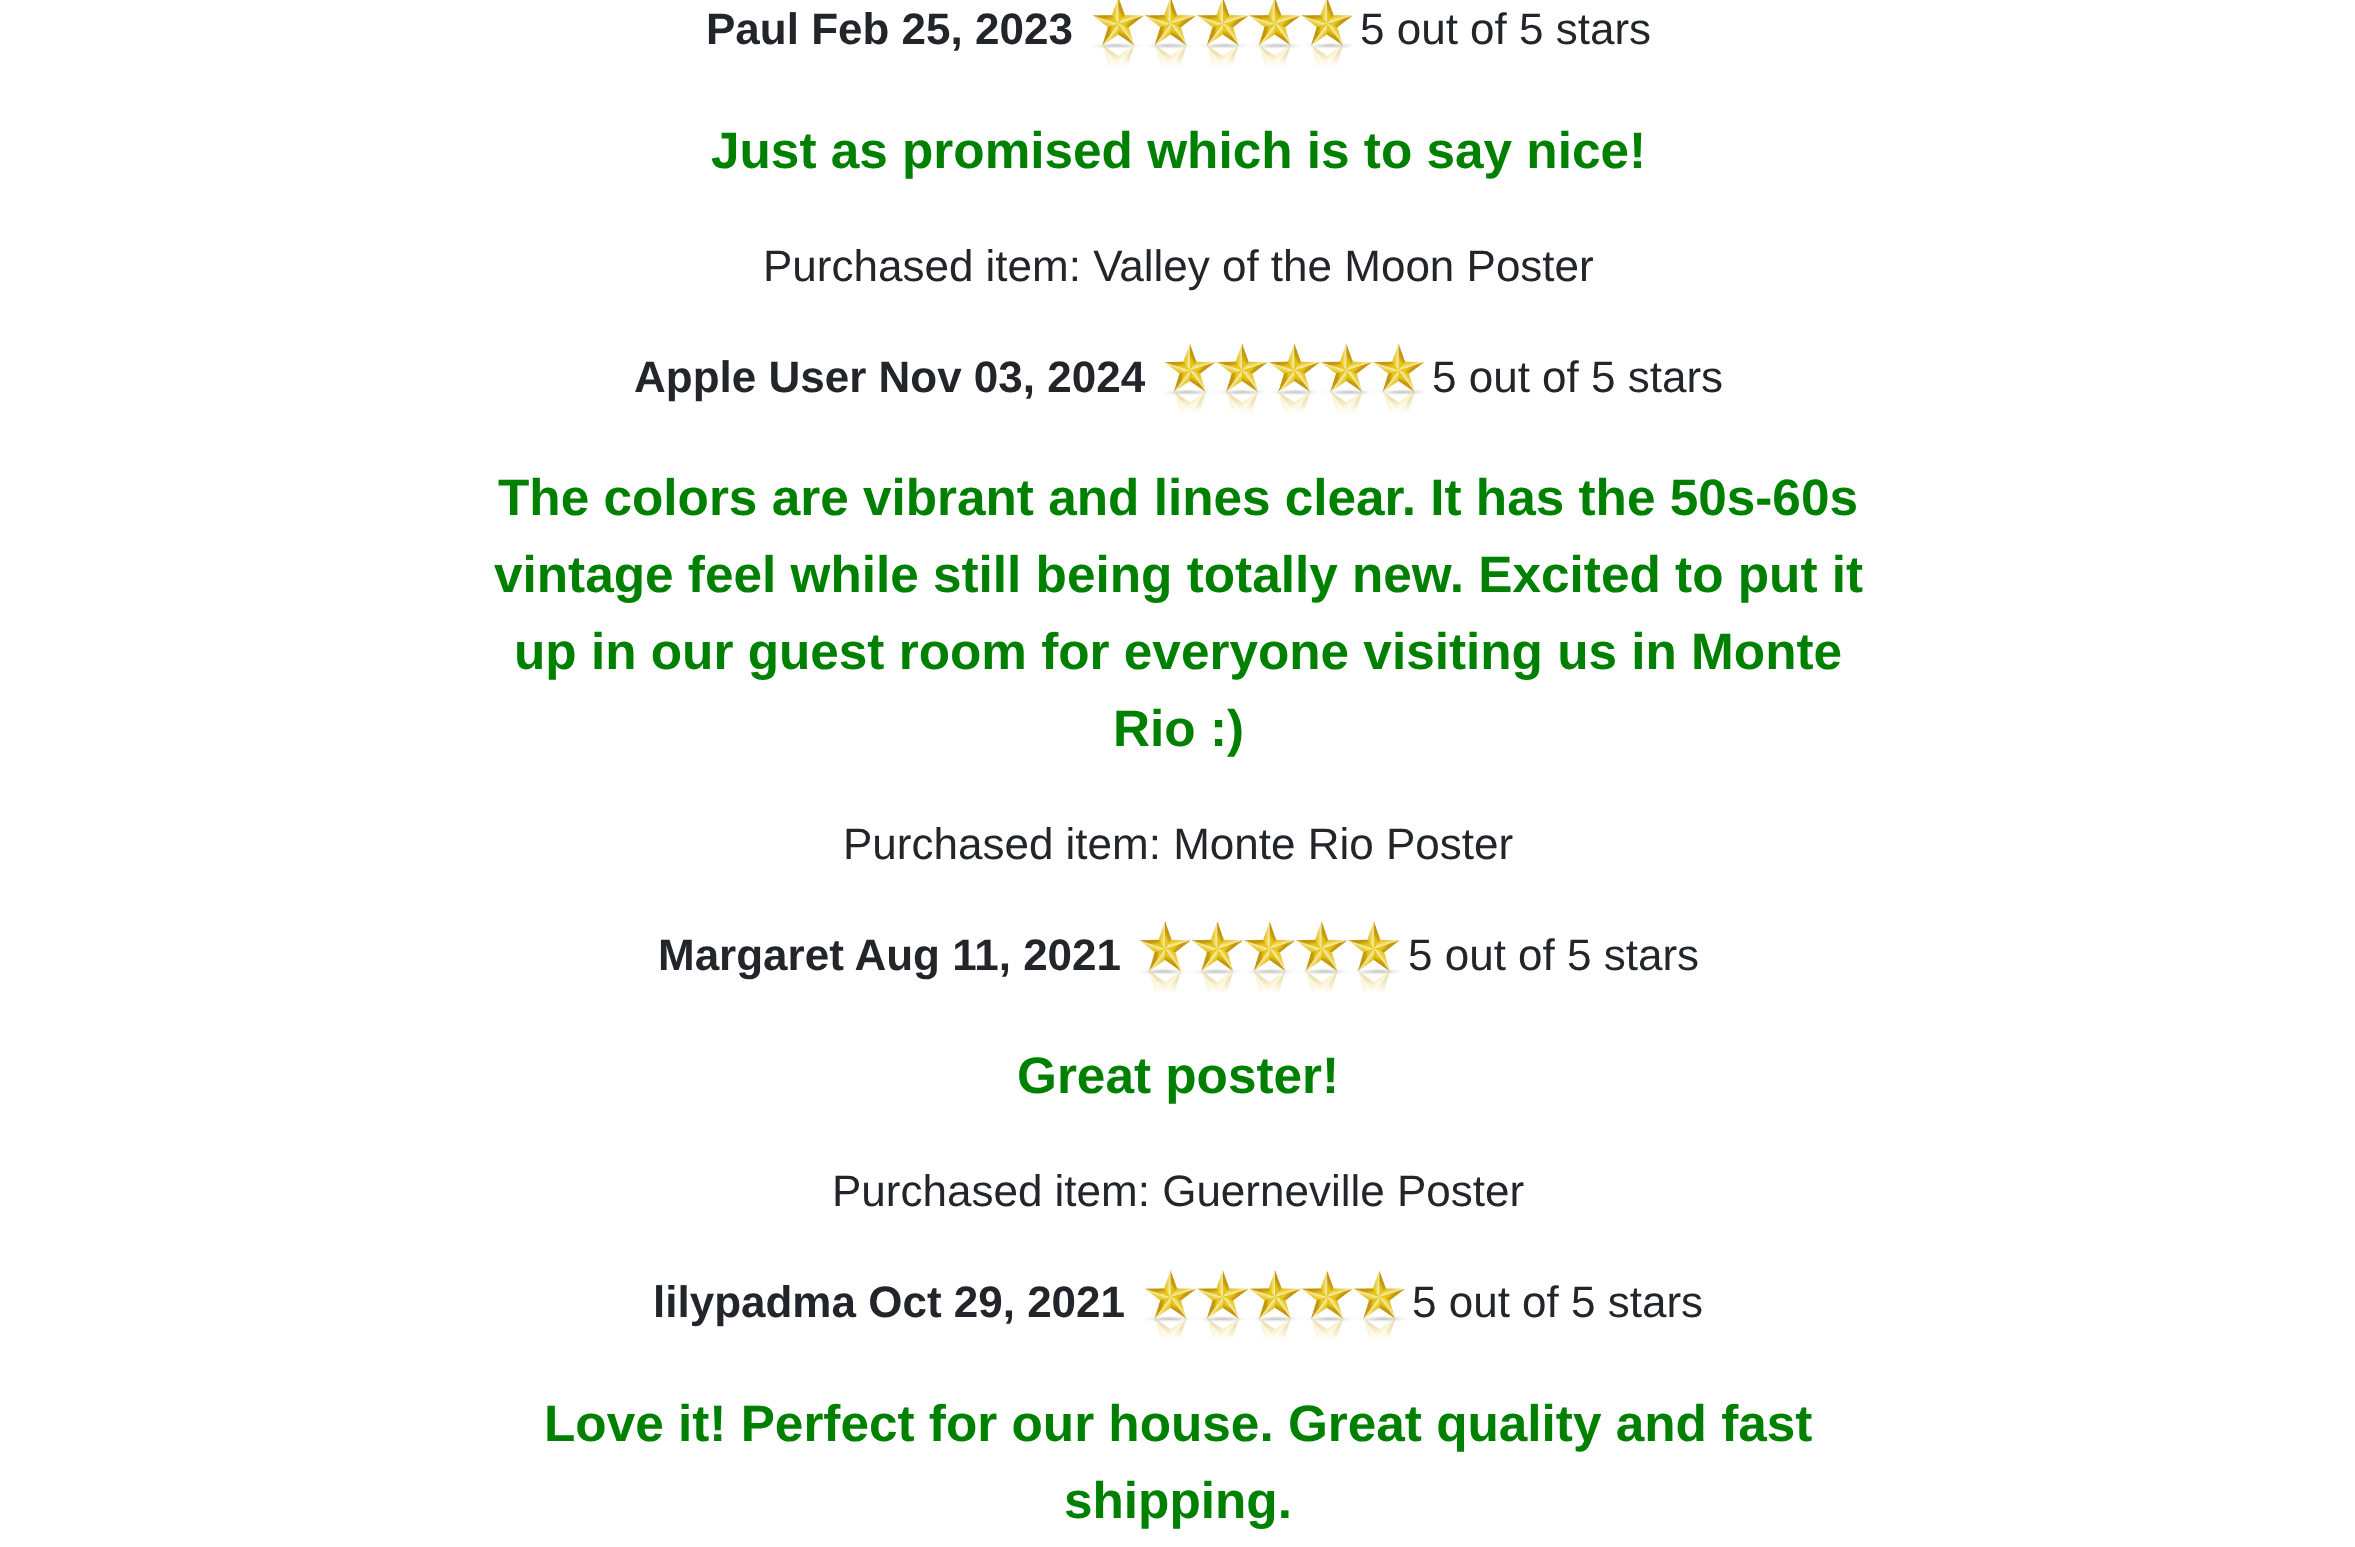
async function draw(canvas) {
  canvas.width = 2355
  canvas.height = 1547
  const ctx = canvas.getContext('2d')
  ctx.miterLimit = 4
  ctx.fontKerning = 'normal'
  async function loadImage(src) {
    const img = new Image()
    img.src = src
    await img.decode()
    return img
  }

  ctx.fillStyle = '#fff'
  ctx.fillRect(0, 0, 2355, 1547)
  ctx.font = 'bold 44px Liberation Sans'
  ctx.fillStyle = '#22262a'
  ctx.fillText('Paul Feb 25, 2023', 706, 44)
  ctx.drawImage(await loadImage('image0.png'), 1092, 0, 261, 67)
  ctx.font = '44px Liberation Sans'
  ctx.fillText('5 out of 5 stars', 1360, 44)
  ctx.font = 'bold 51.3px Liberation Sans'
  ctx.fillStyle = '#008000'
  ctx.fillText('Just as promised which is to say nice!', 711, 168)
  ctx.font = '44px Liberation Sans'
  ctx.fillStyle = '#22262a'
  ctx.fillText('Purchased item: Valley of the Moon Poster', 763, 281)
  ctx.font = 'bold 44px Liberation Sans'
  ctx.fillText('Apple User Nov 03, 2024', 634, 392)
  ctx.drawImage(await loadImage('image1.png'), 1164, 343, 261, 70)
  ctx.font = '44px Liberation Sans'
  ctx.fillText('5 out of 5 stars', 1432, 392)
  ctx.font = 'bold 51.3px Liberation Sans'
  ctx.fillStyle = '#008000'
  ctx.fillText('The colors are vibrant and lines clear. It has the 50s-60s', 498, 515)
  ctx.fillText('vintage feel while still being totally new. Excited to put it', 494, 592)
  ctx.fillText('up in our guest room for everyone visiting us in Monte', 514, 669)
  ctx.fillText('Rio :)', 1113, 746)
  ctx.font = '44px Liberation Sans'
  ctx.fillStyle = '#22262a'
  ctx.fillText('Purchased item: Monte Rio Poster', 843, 859)
  ctx.font = 'bold 44px Liberation Sans'
  ctx.fillText('Margaret Aug 11, 2021', 658, 970)
  ctx.drawImage(await loadImage('image2.png'), 1139, 921, 261, 72)
  ctx.font = '44px Liberation Sans'
  ctx.fillText('5 out of 5 stars', 1408, 970)
  ctx.font = 'bold 51.3px Liberation Sans'
  ctx.fillStyle = '#008000'
  ctx.fillText('Great poster!', 1017, 1093)
  ctx.font = '44px Liberation Sans'
  ctx.fillStyle = '#22262a'
  ctx.fillText('Purchased item: Guerneville Poster', 832, 1206)
  ctx.font = 'bold 44px Liberation Sans'
  ctx.fillText('lilypadma Oct 29, 2021', 653, 1317)
  ctx.drawImage(await loadImage('image3.png'), 1145, 1270, 261, 70)
  ctx.font = '44px Liberation Sans'
  ctx.fillText('5 out of 5 stars', 1412, 1317)
  ctx.font = 'bold 51.3px Liberation Sans'
  ctx.fillStyle = '#008000'
  ctx.fillText('Love it! Perfect for our house. Great quality and fast', 544, 1441)
  ctx.fillText('shipping.', 1064, 1518)
}

draw(document.querySelector('canvas'))
